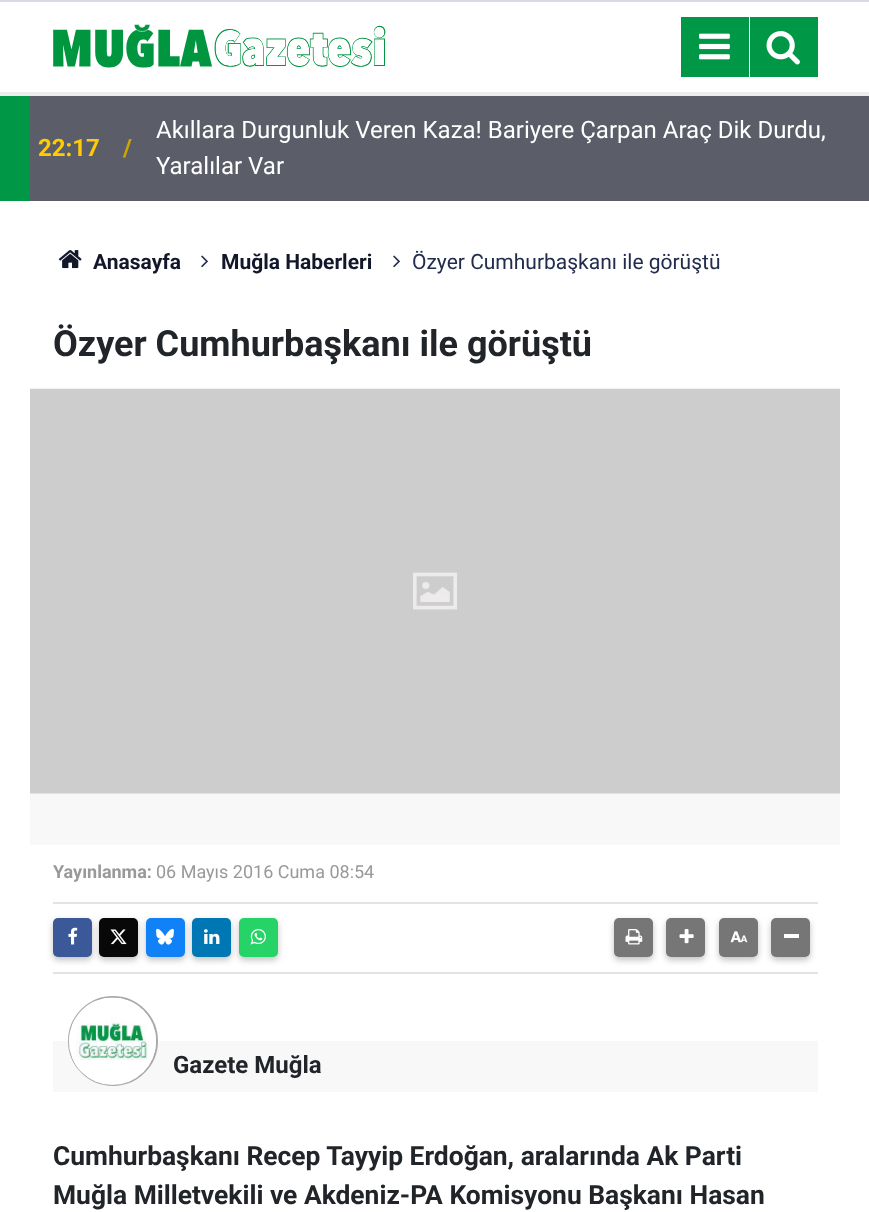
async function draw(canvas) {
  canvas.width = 869
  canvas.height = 1212
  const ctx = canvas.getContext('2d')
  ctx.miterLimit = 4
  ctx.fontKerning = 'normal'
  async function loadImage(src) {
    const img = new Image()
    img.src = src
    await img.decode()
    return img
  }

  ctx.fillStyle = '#fff'
  ctx.fillRect(0, 0, 869, 1212)
  ctx.fillStyle = '#d7dae1'
  ctx.fillRect(0, 0, 869, 2)
  ctx.fillStyle = '#ecedee'
  ctx.fillRect(0, 92, 869, 4)
  ctx.drawImage(await loadImage('image0.png'), 53, 24, 333, 44)
  ctx.fillStyle = '#009746'
  ctx.fillRect(681, 17, 68, 60)
  ctx.drawImage(await loadImage('image1.png'), 699, 33, 31, 27)
  ctx.fillRect(750, 17, 68, 60)
  ctx.drawImage(await loadImage('image2.png'), 766, 31, 34, 34)
  ctx.fillRect(0, 96, 30, 105)
  ctx.fillStyle = '#5b5e68'
  ctx.fillRect(30, 96, 839, 105)
  ctx.font = 'bold 24px Roboto'
  ctx.fillStyle = '#ffcb05'
  ctx.fillText('22:17', 38, 156)
  ctx.fillStyle = '#d1a600'
  ctx.fillText('/', 123, 156)
  ctx.font = '24px Roboto'
  ctx.fillStyle = '#fff'
  ctx.fillText('Akıllara Durgunluk Veren Kaza! Bariyere Çarpan Araç Dik Durdu,', 156, 138)
  ctx.fillText('Yaralılar Var', 156, 174)
  ctx.drawImage(await loadImage('image3.png'), 58, 250, 24, 19)
  ctx.font = 'bold 21px Roboto'
  ctx.fillStyle = '#12182a'
  ctx.fillText('Anasayfa', 93, 269)
  ctx.drawImage(await loadImage('image4.png'), 201, 255, 7, 13)
  ctx.fillText('Muğla Haberleri', 221, 269)
  ctx.drawImage(await loadImage('image4.png'), 393, 255, 7, 13)
  ctx.font = '21px Roboto'
  ctx.fillStyle = '#212c4e'
  ctx.fillText('Özyer Cumhurbaşkanı ile görüştü', 412, 269)
  ctx.font = 'bold 36px Roboto'
  ctx.fillStyle = '#212529'
  ctx.fillText('Özyer Cumhurbaşkanı ile görüştü', 53, 356)
  ctx.fillStyle = '#f8f8f8'
  ctx.fillRect(30, 793, 810, 52)
  ctx.drawImage(await loadImage('image5.png'), 30, 388, 810, 406)
  ctx.font = 'bold 18px Roboto'
  ctx.fillStyle = '#999'
  ctx.fillText('Yayınlanma:', 53, 878)
  ctx.font = '18px Roboto'
  ctx.fillText('06 Mayıs 2016 Cuma 08:54', 156, 878)
  ctx.fillStyle = '#e3e3e3'
  ctx.fillRect(53, 902, 765, 2)
  ctx.fillRect(53, 972, 765, 2)
  ctx.fillStyle = '#3232324d'
  ctx.filter = 'blur(3px)'
  ctx.beginPath()
  ctx.roundRect(53, 921, 39, 39, 5)
  ctx.fill()
  ctx.filter = 'none'
  ctx.fillStyle = '#3b5999'
  ctx.beginPath()
  ctx.roundRect(53, 918, 39, 39, 5)
  ctx.fill()
  ctx.drawImage(await loadImage('image6.png'), 68, 927, 10, 18)
  ctx.fillStyle = '#3232324d'
  ctx.filter = 'blur(3px)'
  ctx.beginPath()
  ctx.roundRect(99, 921, 39, 39, 5)
  ctx.fill()
  ctx.filter = 'none'
  ctx.fillStyle = '#080808'
  ctx.beginPath()
  ctx.roundRect(99, 918, 39, 39, 5)
  ctx.fill()
  ctx.drawImage(await loadImage('image7.png'), 110, 929, 17, 16)
  ctx.fillStyle = '#3232324d'
  ctx.filter = 'blur(3px)'
  ctx.beginPath()
  ctx.roundRect(146, 921, 39, 39, 5)
  ctx.fill()
  ctx.filter = 'none'
  ctx.fillStyle = '#1081f6'
  ctx.beginPath()
  ctx.roundRect(146, 918, 39, 39, 5)
  ctx.fill()
  ctx.drawImage(await loadImage('image8.png'), 156, 928, 18, 17)
  ctx.fillStyle = '#3232324d'
  ctx.filter = 'blur(3px)'
  ctx.beginPath()
  ctx.roundRect(192, 921, 39, 39, 5)
  ctx.fill()
  ctx.filter = 'none'
  ctx.fillStyle = '#0077b5'
  ctx.beginPath()
  ctx.roundRect(192, 918, 39, 39, 5)
  ctx.fill()
  ctx.drawImage(await loadImage('image9.png'), 204, 929, 16, 15)
  ctx.fillStyle = '#3232324d'
  ctx.filter = 'blur(3px)'
  ctx.beginPath()
  ctx.roundRect(239, 921, 39, 39, 5)
  ctx.fill()
  ctx.filter = 'none'
  ctx.fillStyle = '#25d366'
  ctx.beginPath()
  ctx.roundRect(239, 918, 39, 39, 5)
  ctx.fill()
  ctx.drawImage(await loadImage('image10.png'), 250, 929, 16, 16)
  ctx.fillStyle = '#3232324d'
  ctx.filter = 'blur(3px)'
  ctx.beginPath()
  ctx.roundRect(614, 921, 39, 39, 5)
  ctx.fill()
  ctx.filter = 'none'
  ctx.fillStyle = '#767676'
  ctx.beginPath()
  ctx.roundRect(614, 918, 39, 39, 5)
  ctx.fill()
  ctx.drawImage(await loadImage('image11.png'), 625, 929, 18, 16)
  ctx.fillStyle = '#3232324d'
  ctx.filter = 'blur(3px)'
  ctx.beginPath()
  ctx.roundRect(666, 921, 39, 39, 5)
  ctx.fill()
  ctx.filter = 'none'
  ctx.fillStyle = '#767676'
  ctx.beginPath()
  ctx.roundRect(666, 918, 39, 39, 5)
  ctx.fill()
  ctx.drawImage(await loadImage('image12.png'), 679, 929, 15, 15)
  ctx.fillStyle = '#3232324d'
  ctx.filter = 'blur(3px)'
  ctx.beginPath()
  ctx.roundRect(719, 921, 39, 39, 5)
  ctx.fill()
  ctx.filter = 'none'
  ctx.fillStyle = '#767676'
  ctx.beginPath()
  ctx.roundRect(719, 918, 39, 39, 5)
  ctx.fill()
  ctx.drawImage(await loadImage('image13.png'), 730, 931, 18, 12)
  ctx.fillStyle = '#3232324d'
  ctx.filter = 'blur(3px)'
  ctx.beginPath()
  ctx.roundRect(771, 921, 39, 39, 5)
  ctx.fill()
  ctx.filter = 'none'
  ctx.fillStyle = '#767676'
  ctx.beginPath()
  ctx.roundRect(771, 918, 39, 39, 5)
  ctx.fill()
  ctx.fillStyle = '#fff'
  ctx.fillRect(784, 934, 15, 4)
  ctx.fillStyle = '#f8f8f8'
  ctx.fillRect(53, 1041, 765, 51)
  ctx.beginPath()
  ctx.arc(113, 1041, 44, 0, 2 * Math.PI)
  ctx.strokeStyle = '#aaa'
  ctx.lineWidth = 2
  ctx.stroke()
  ctx.beginPath()
  ctx.arc(112.5, 1041.5, 43.5, 0, 2 * Math.PI)
  ctx.fill()
  ctx.drawImage(await loadImage('image14.png'), 69, 997, 87, 87)
  ctx.font = 'bold 24px Roboto'
  ctx.fillStyle = '#212529'
  ctx.fillText('Gazete Muğla', 173, 1073)
  ctx.font = 'bold 26.4px Roboto'
  ctx.fillText('Cumhurbaşkanı Recep Tayyip Erdoğan, aralarında Ak Parti', 53, 1165)
  ctx.fillText('Muğla Milletvekili ve Akdeniz-PA Komisyonu Başkanı Hasan', 53, 1204)
}

draw(document.querySelector('canvas'))
